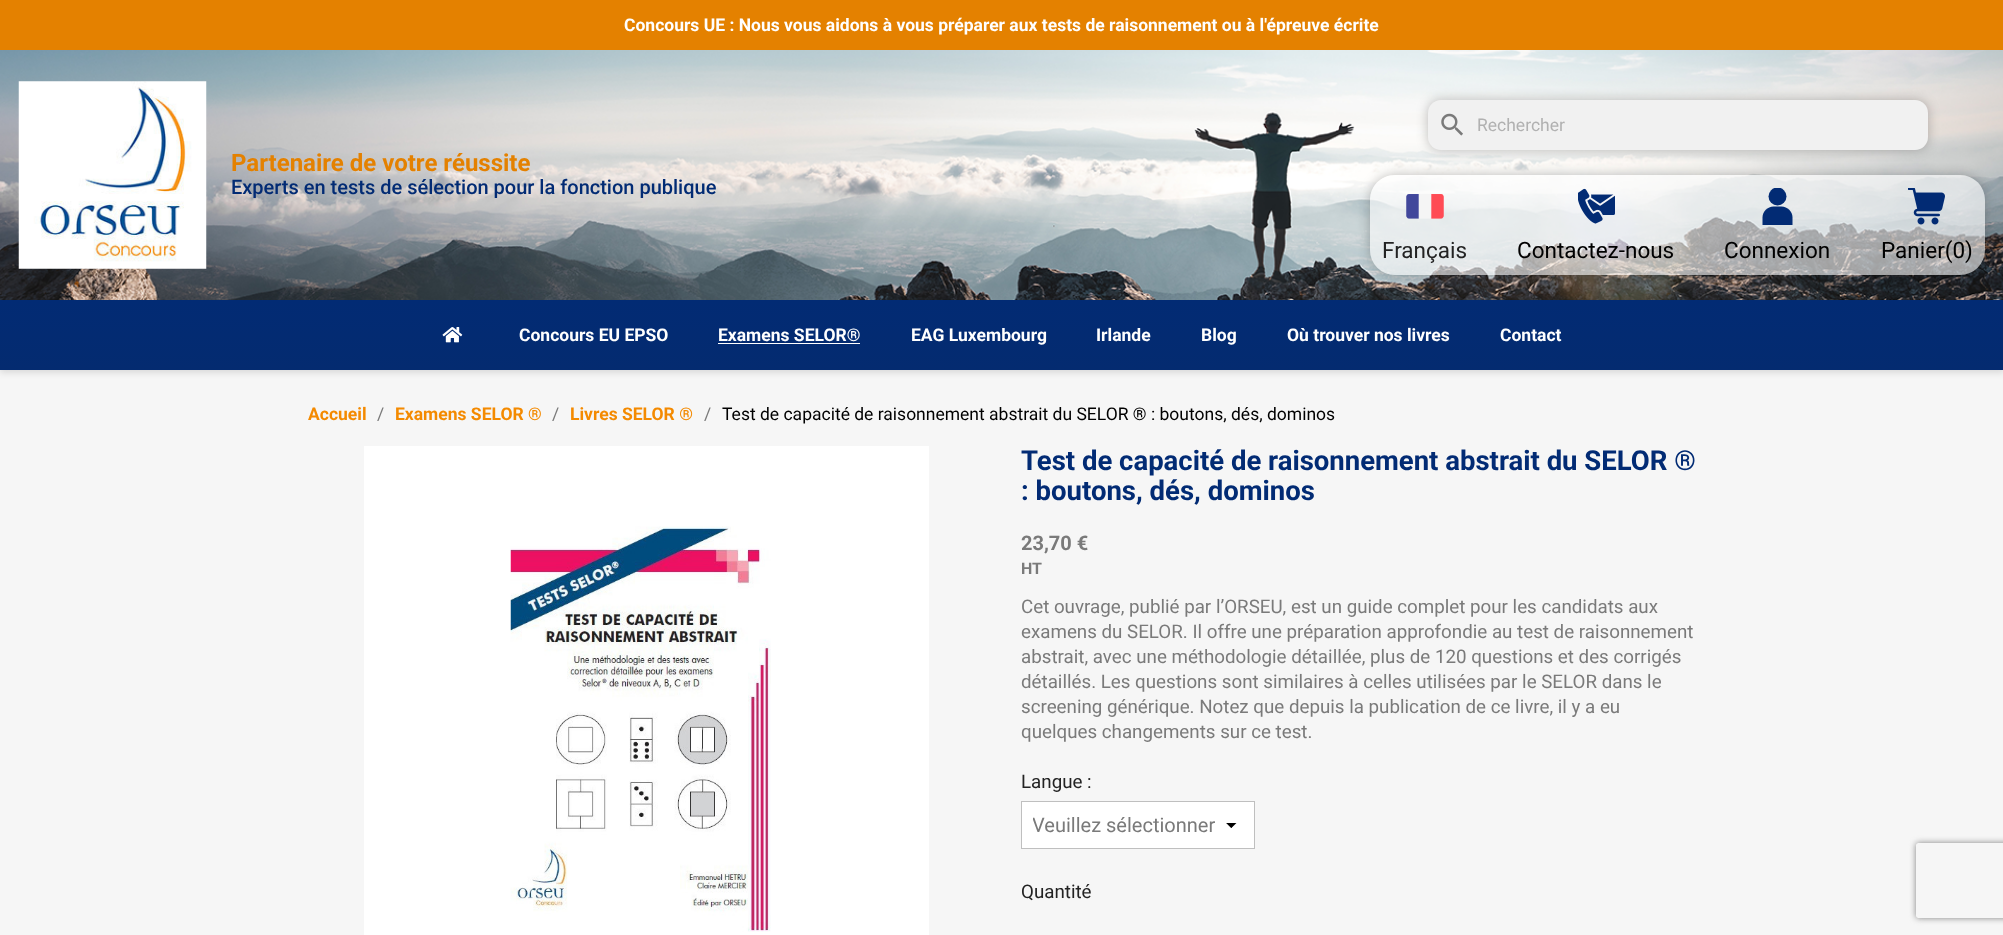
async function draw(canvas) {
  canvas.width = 2003
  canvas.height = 935
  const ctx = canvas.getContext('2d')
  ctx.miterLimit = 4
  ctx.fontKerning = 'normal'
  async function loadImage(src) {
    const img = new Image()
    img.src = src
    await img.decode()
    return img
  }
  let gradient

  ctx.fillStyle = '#f6f6f6'
  ctx.fillRect(0, 0, 2003, 935)
  ctx.fillStyle = '#0000001c'
  ctx.filter = 'blur(3px)'
  ctx.beginPath()
  ctx.rect(0, 3, 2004, 370)
  ctx.fill()
  ctx.filter = 'none'
  ctx.fillStyle = '#e48100'
  ctx.fillRect(0, 0, 2003, 50)
  ctx.font = 'bold 17.5px Roboto'
  ctx.fillStyle = '#fff'
  ctx.fillText('Concours UE : Nous vous aidons à vous préparer aux tests de raisonnement ou à l\'épreuve écrite', 624, 31)
  ctx.drawImage(await loadImage('image0.png'), 0, 50, 2003, 250)
  ctx.drawImage(await loadImage('image1.png'), 18, 81, 189, 188)
  ctx.font = 'bold 24px Roboto'
  ctx.fillStyle = '#e48100'
  ctx.fillText('Partenaire de votre réussite', 231, 171)
  ctx.font = '500 20px Roboto'
  ctx.fillStyle = '#022b74'
  ctx.fillText('Experts en tests de sélection pour la fonction publique', 231, 194)
  ctx.fillStyle = '#00000040'
  ctx.filter = 'blur(6px)'
  ctx.beginPath()
  ctx.roundRect(1428, 100, 500, 50, 13)
  ctx.fill()
  ctx.filter = 'none'
  ctx.fillStyle = '#f1f1f1'
  ctx.beginPath()
  ctx.roundRect(1428, 100, 500, 50, 13)
  ctx.fill()
  ctx.drawImage(await loadImage('image2.png'), 1441, 113, 22, 23)
  ctx.font = '17.5px Roboto'
  ctx.fillStyle = '#b1b1b1'
  ctx.fillText('Rechercher', 1477, 131)
  ctx.save()
  ctx.beginPath()
  ctx.moveTo(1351, 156)
  ctx.lineTo(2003, 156)
  ctx.lineTo(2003, 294)
  ctx.lineTo(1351, 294)
  ctx.closePath()
  ctx.moveTo(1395, 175)
  ctx.lineTo(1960, 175)
  ctx.bezierCurveTo(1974, 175, 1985, 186, 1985, 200)
  ctx.lineTo(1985, 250)
  ctx.bezierCurveTo(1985, 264, 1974, 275, 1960, 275)
  ctx.lineTo(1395, 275)
  ctx.bezierCurveTo(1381, 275, 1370, 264, 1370, 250)
  ctx.lineTo(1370, 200)
  ctx.bezierCurveTo(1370, 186, 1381, 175, 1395, 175)
  ctx.closePath()
  ctx.clip('evenodd')
  ctx.fillStyle = '#00000040'
  ctx.filter = 'blur(6px)'
  ctx.beginPath()
  ctx.roundRect(1370, 175, 615, 100, 25)
  ctx.fill()
  ctx.filter = 'none'
  ctx.restore()
  ctx.fillStyle = '#ffffff99'
  ctx.beginPath()
  ctx.roundRect(1370, 175, 615, 100, 25)
  ctx.fill()
  ctx.drawImage(await loadImage('image3.png'), 1406, 194, 38, 25)
  ctx.font = '22.5px Roboto'
  ctx.fillStyle = '#232323'
  ctx.fillText('Français', 1382, 258)
  ctx.drawImage(await loadImage('image4.png'), 1578, 188, 37, 36)
  ctx.fillStyle = '#000'
  ctx.fillText('Contactez-nous', 1517, 258)
  ctx.fillStyle = '#022b74'
  ctx.beginPath()
  ctx.moveTo(1762.5, 217.5)
  ctx.lineTo(1762.5, 225)
  ctx.lineTo(1792.5, 225)
  ctx.lineTo(1792.5, 217.5)
  ctx.bezierCurveTo(1792.5, 211.5, 1787.5, 206.5, 1781.5, 206.5)
  ctx.lineTo(1773.5, 206.5)
  ctx.bezierCurveTo(1767.5, 206.5, 1762.5, 211.5, 1762.5, 217.5)
  ctx.closePath()
  ctx.fill()
  ctx.save()
  ctx.beginPath()
  ctx.rect(1759, 188, 37, 37)
  ctx.clip()
  ctx.beginPath()
  ctx.arc(1777.5, 196.5, 9, 0, 2 * Math.PI)
  ctx.fill()
  ctx.restore()
  ctx.fillStyle = '#000'
  ctx.fillText('Connexion', 1724, 258)
  ctx.drawImage(await loadImage('image5.png'), 1908, 188, 37, 37)
  ctx.fillText('Panier(0)', 1881, 258)
  gradient = ctx.createLinearGradient(1002, 300, 1002, 370)
  gradient.addColorStop(0, '#022b74')
  gradient.addColorStop(1, '#042b70')
  ctx.fillStyle = gradient
  ctx.fillRect(0, 300, 2003, 70)
  ctx.drawImage(await loadImage('image6.png'), 442, 327, 21, 16)
  ctx.font = 'bold 17.5px Roboto'
  ctx.fillStyle = '#fff'
  ctx.fillText('Concours EU EPSO', 519, 341)
  ctx.fillText('Examens SELOR®', 718, 341)
  ctx.fillRect(718, 343, 142, 1)
  ctx.fillText('EAG Luxembourg', 911, 341)
  ctx.fillText('Irlande', 1096, 341)
  ctx.fillText('Blog', 1201, 341)
  ctx.fillText('Où trouver nos livres', 1287, 341)
  ctx.fillText('Contact', 1500, 341)
  ctx.fillStyle = '#f48a00'
  ctx.fillText('Accueil', 308, 420)
  ctx.font = '17.5px Roboto'
  ctx.fillStyle = '#7a7a7a'
  ctx.fillText('/', 377, 420)
  ctx.font = 'bold 17.5px Roboto'
  ctx.fillStyle = '#f48a00'
  ctx.fillText('Examens SELOR ®', 395, 420)
  ctx.font = '17.5px Roboto'
  ctx.fillStyle = '#7a7a7a'
  ctx.fillText('/', 552, 420)
  ctx.font = 'bold 17.5px Roboto'
  ctx.fillStyle = '#f48a00'
  ctx.fillText('Livres SELOR ®', 570, 420)
  ctx.font = '17.5px Roboto'
  ctx.fillStyle = '#7a7a7a'
  ctx.fillText('/', 704, 420)
  ctx.fillStyle = '#000'
  ctx.fillText('Test de capacité de raisonnement abstrait du SELOR ® : boutons, dés, dominos', 722, 420)
  ctx.fillStyle = '#fff'
  ctx.fillRect(364, 446, 565, 489)
  ctx.drawImage(await loadImage('image7.png'), 510, 526, 261, 406)
  ctx.font = 'bold 27.5px Roboto'
  ctx.fillStyle = '#022b74'
  ctx.fillText('Test de capacité de raisonnement abstrait du SELOR ®', 1021, 470)
  ctx.fillText(': boutons, dés, dominos', 1021, 500)
  ctx.font = 'bold 20px Roboto'
  ctx.fillStyle = '#7a7a7a'
  ctx.fillText('23,70 €', 1021, 550)
  ctx.font = 'bold 16px Roboto'
  ctx.fillText('HT', 1021, 574)
  ctx.font = '18.75px Roboto'
  ctx.fillText('Cet ouvrage, publié par l’ORSEU, est un guide complet pour les candidats aux', 1021, 613)
  ctx.fillText('examens du SELOR. Il offre une préparation approfondie au test de raisonnement', 1021, 638)
  ctx.fillText('abstrait, avec une méthodologie détaillée, plus de 120 questions et des corrigés', 1021, 663)
  ctx.fillText('détaillés. Les questions sont similaires à celles utilisées par le SELOR dans le', 1021, 688)
  ctx.fillText('screening générique. Notez que depuis la publication de ce livre, il y a eu', 1021, 713)
  ctx.fillText('quelques changements sur ce test.', 1021, 738)
  ctx.fillStyle = '#232323'
  ctx.fillText('Langue :', 1021, 788)
  ctx.fillStyle = '#fff'
  ctx.fillRect(1022, 802, 232, 46)
  ctx.drawImage(await loadImage('image8.png'), 1226, 823, 11, 5)
  ctx.strokeStyle = '#bfbfbf'
  ctx.strokeRect(1021.5, 801.5, 233, 47)
  ctx.save()
  ctx.beginPath()
  ctx.rect(1033, 813, 183, 25)
  ctx.clip()
  ctx.font = '20px Roboto'
  ctx.fillStyle = '#7a7a7a'
  ctx.fillText('Veuillez sélectionner', 1032, 832)
  ctx.restore()
  ctx.fillStyle = '#232323'
  ctx.fillText('Quantité', 1021, 898)
  ctx.save()
  ctx.beginPath()
  ctx.moveTo(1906, 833)
  ctx.lineTo(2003, 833)
  ctx.lineTo(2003, 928)
  ctx.lineTo(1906, 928)
  ctx.closePath()
  ctx.moveTo(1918.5, 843)
  ctx.lineTo(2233.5, 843)
  ctx.bezierCurveTo(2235, 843, 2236, 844, 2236, 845.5)
  ctx.lineTo(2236, 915.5)
  ctx.bezierCurveTo(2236, 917, 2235, 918, 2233.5, 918)
  ctx.lineTo(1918.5, 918)
  ctx.bezierCurveTo(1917, 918, 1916, 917, 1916, 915.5)
  ctx.lineTo(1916, 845.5)
  ctx.bezierCurveTo(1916, 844, 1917, 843, 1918.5, 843)
  ctx.closePath()
  ctx.clip('evenodd')
  ctx.fillStyle = '#808080'
  ctx.filter = 'blur(3px)'
  ctx.beginPath()
  ctx.roundRect(1916, 843, 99, 75, 2.5)
  ctx.fill()
  ctx.filter = 'none'
  ctx.restore()
}

draw(document.querySelector('canvas'))
